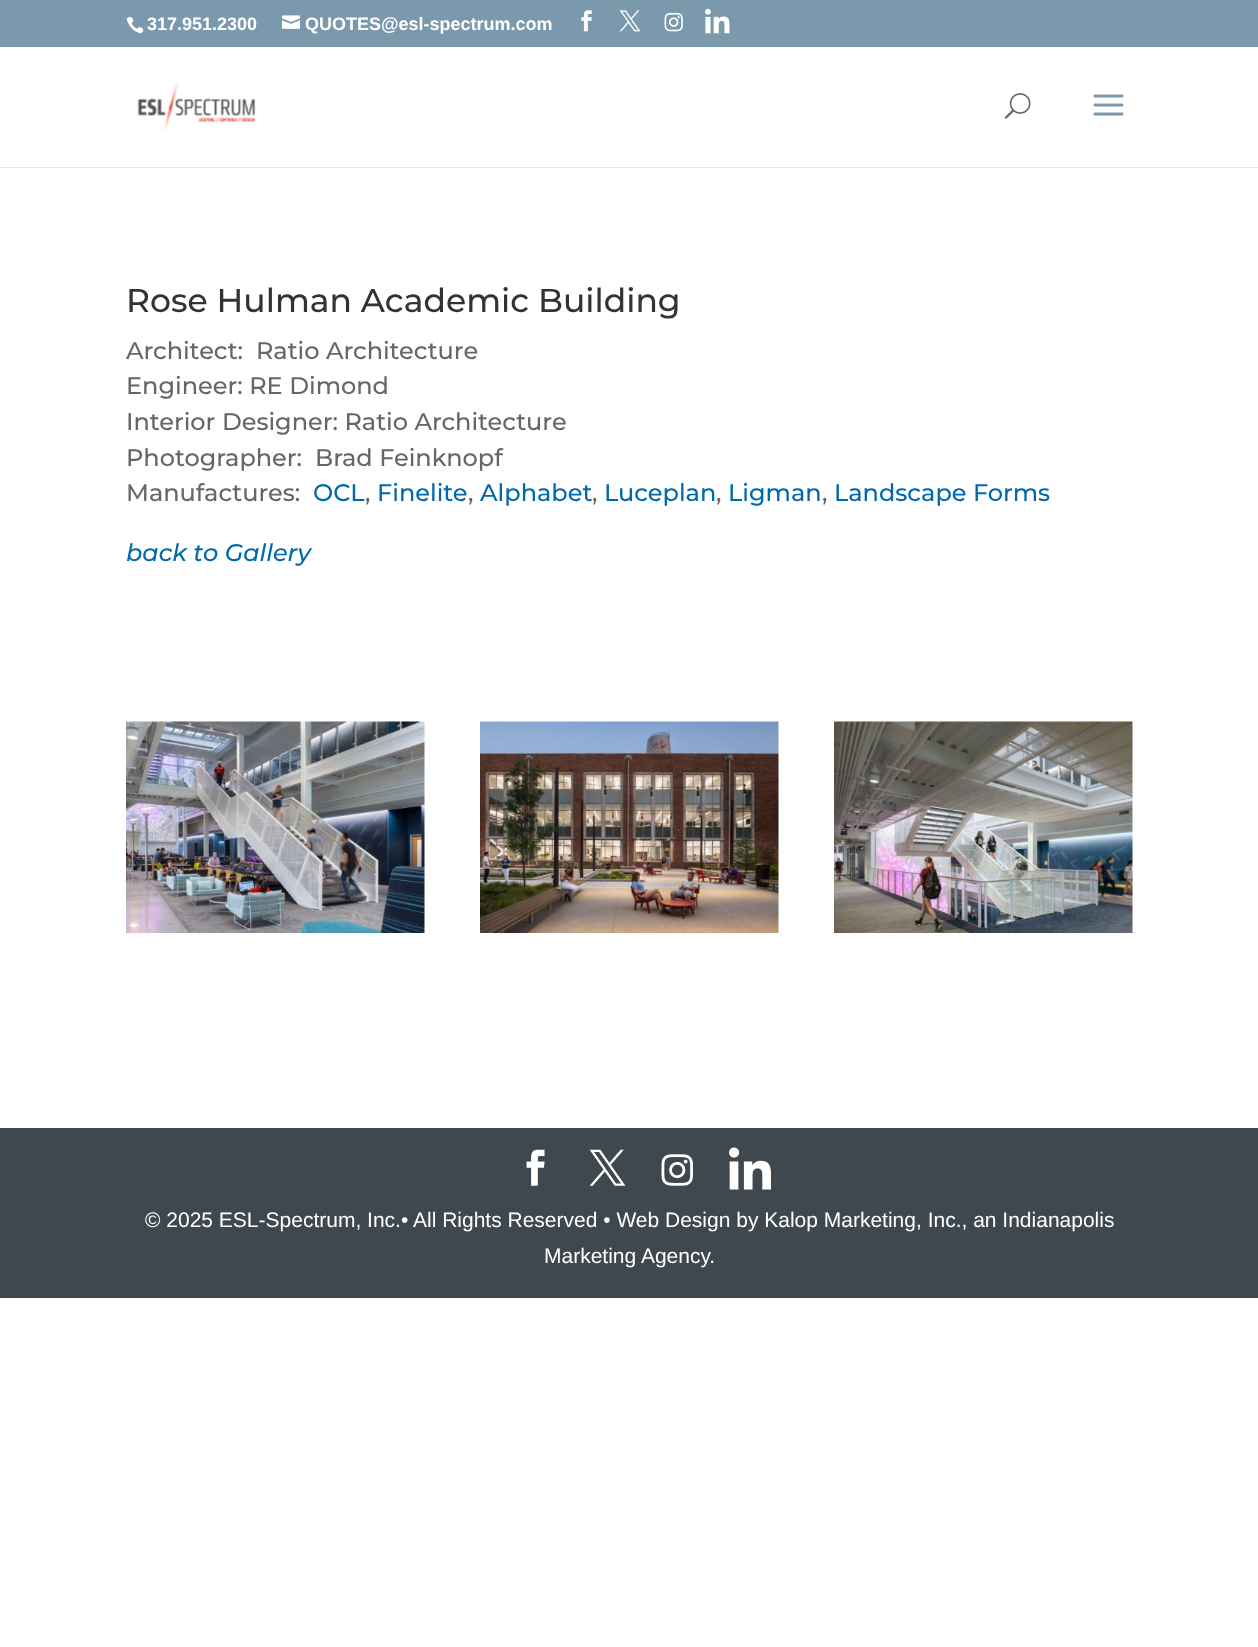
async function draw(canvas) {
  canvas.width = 1258
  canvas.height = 1647
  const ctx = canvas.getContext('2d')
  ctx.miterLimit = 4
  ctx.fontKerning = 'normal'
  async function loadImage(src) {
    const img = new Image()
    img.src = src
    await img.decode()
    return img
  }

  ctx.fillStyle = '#fff'
  ctx.fillRect(0, 0, 1258, 1647)
  ctx.fillStyle = '#7a99ac'
  ctx.fillRect(0, 0, 1258, 47)
  ctx.drawImage(await loadImage('image0.png'), 126, 16, 18, 18)
  ctx.font = 'bold 18px Liberation Sans'
  ctx.fillStyle = '#fff'
  ctx.fillText('317.951.2300', 147, 30)
  ctx.drawImage(await loadImage('image1.png'), 282, 15, 18, 14)
  ctx.fillText('QUOTES@esl-spectrum.com', 305, 30)
  ctx.drawImage(await loadImage('image2.png'), 581, 10, 11, 22)
  ctx.drawImage(await loadImage('image3.png'), 619, 10, 22, 22)
  ctx.drawImage(await loadImage('image4.png'), 664, 12, 19, 20)
  ctx.drawImage(await loadImage('image5.png'), 705, 8, 25, 26)
  ctx.fillStyle = '#e6e6e6'
  ctx.beginPath()
  ctx.moveTo(0, 166)
  ctx.lineTo(0, 168)
  ctx.lineTo(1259, 168)
  ctx.lineTo(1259, 48)
  ctx.lineTo(1258, 48)
  ctx.lineTo(1258, 166)
  ctx.closePath()
  ctx.fill()
  ctx.fillStyle = '#fff'
  ctx.fillRect(0, 166, 1258, 1)
  ctx.drawImage(await loadImage('image6.png'), 137, 81, 119, 51)
  ctx.drawImage(await loadImage('image7.png'), 1004, 93, 27, 26)
  ctx.drawImage(await loadImage('image8.png'), 1093, 94, 31, 22)
  ctx.font = '100 33px Montserrat'
  ctx.fillStyle = '#333'
  ctx.fillText('Rose Hulman Academic Building', 126, 312)
  ctx.font = '100 24px Montserrat'
  ctx.fillStyle = '#666'
  ctx.fillText('Architect:  Ratio Architecture', 126, 359)
  ctx.fillText('Engineer: RE Dimond', 126, 394)
  ctx.fillText('Interior Designer: Ratio Architecture', 126, 430)
  ctx.fillText('Photographer:  Brad Feinknopf', 126, 466)
  ctx.fillText('Manufactures:', 126, 501)
  ctx.fillStyle = '#0069aa'
  ctx.fillText('OCL', 313, 501)
  ctx.fillStyle = '#666'
  ctx.fillText(',', 365, 501)
  ctx.fillStyle = '#0069aa'
  ctx.fillText('Finelite', 377, 501)
  ctx.fillStyle = '#666'
  ctx.fillText(',', 468, 501)
  ctx.fillStyle = '#0069aa'
  ctx.fillText('Alphabet', 480, 501)
  ctx.fillStyle = '#666'
  ctx.fillText(',', 592, 501)
  ctx.fillStyle = '#0069aa'
  ctx.fillText('Luceplan', 604, 501)
  ctx.fillStyle = '#666'
  ctx.fillText(',', 716, 501)
  ctx.fillStyle = '#0069aa'
  ctx.fillText('Ligman', 728, 501)
  ctx.fillStyle = '#666'
  ctx.fillText(',', 822, 501)
  ctx.fillStyle = '#0069aa'
  ctx.fillText('Landscape Forms', 834, 501)
  ctx.font = 'italic 100 24px Montserrat'
  ctx.fillText('back to Gallery', 126, 561)
  ctx.drawImage(await loadImage('image9.png'), 126, 721, 299, 212)
  ctx.drawImage(await loadImage('image10.png'), 480, 721, 299, 212)
  ctx.drawImage(await loadImage('image11.png'), 834, 721, 299, 212)
  ctx.fillStyle = '#3e484e'
  ctx.fillRect(0, 1128, 1258, 170)
  ctx.drawImage(await loadImage('image12.png'), 526, 1149, 19, 37)
  ctx.drawImage(await loadImage('image13.png'), 589, 1149, 37, 37)
  ctx.drawImage(await loadImage('image14.png'), 661, 1154, 32, 32)
  ctx.drawImage(await loadImage('image15.png'), 729, 1147, 42, 43)
  ctx.font = '21px Liberation Sans'
  ctx.fillStyle = '#fff'
  ctx.fillText('© 2025 ESL-Spectrum, Inc.• All Rights Reserved • Web Design by Kalop Marketing, Inc., an Indianapolis', 145, 1227)
  ctx.fillText('Marketing Agency.', 544, 1263)
}

draw(document.querySelector('canvas'))
